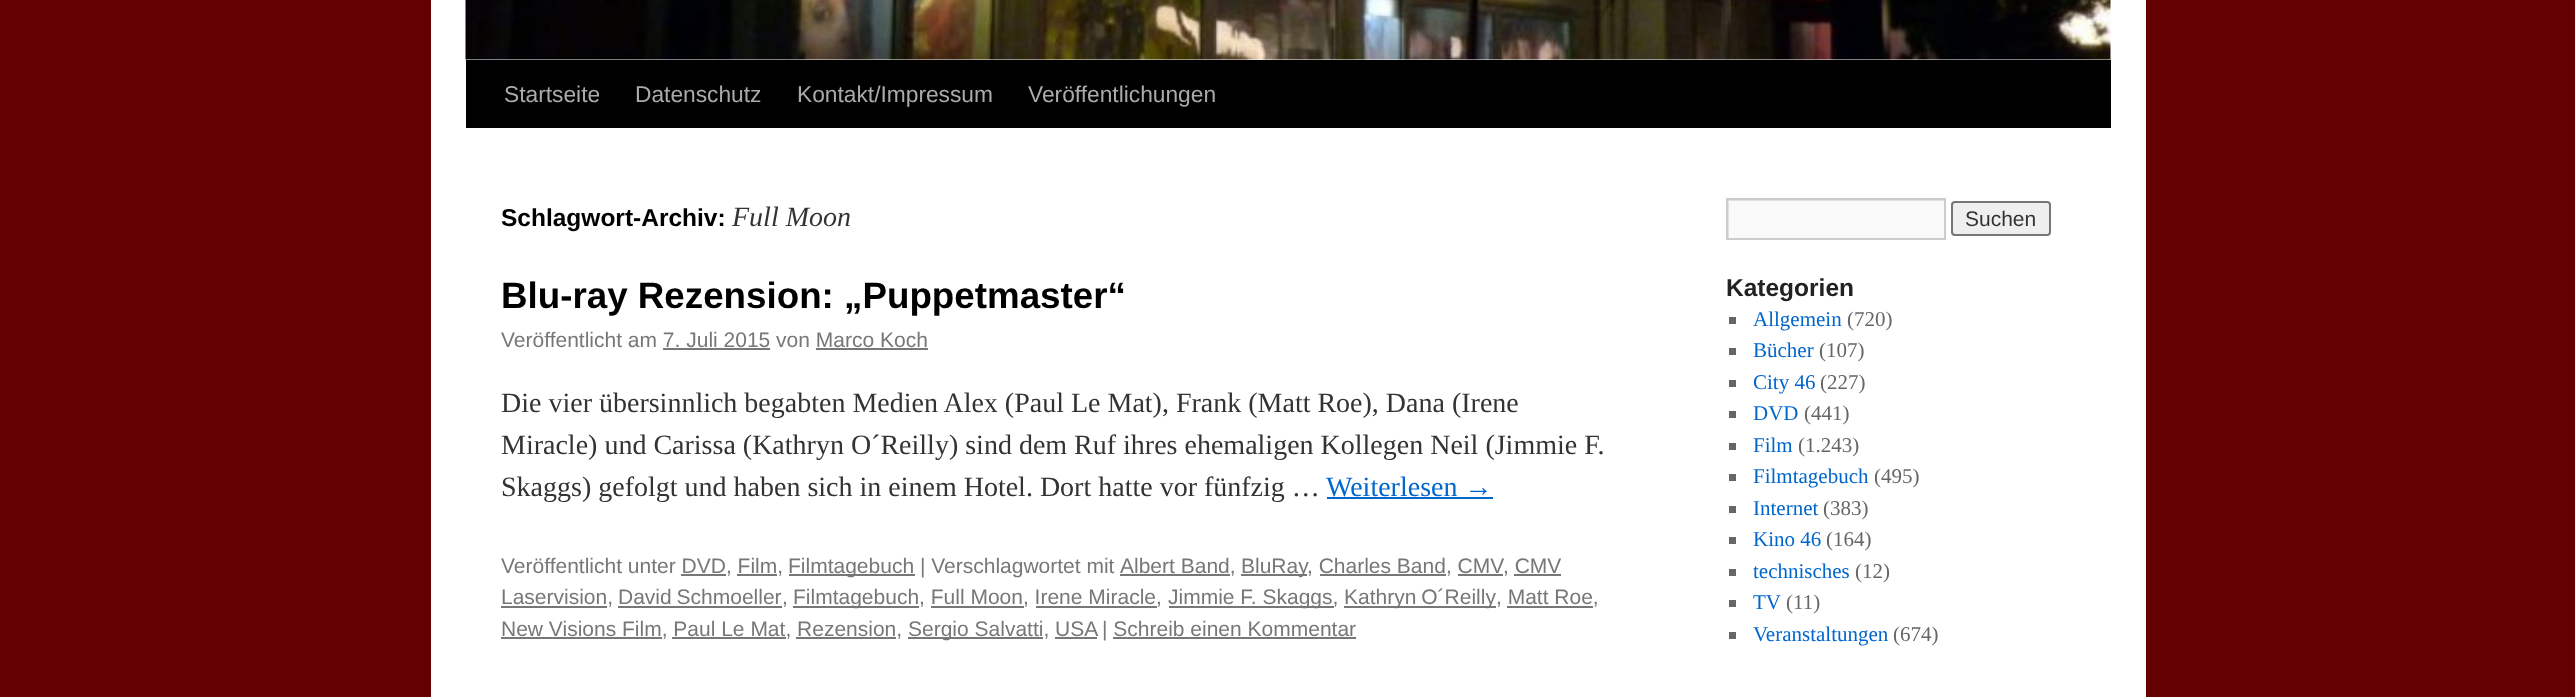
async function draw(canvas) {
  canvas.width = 2575
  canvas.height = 697
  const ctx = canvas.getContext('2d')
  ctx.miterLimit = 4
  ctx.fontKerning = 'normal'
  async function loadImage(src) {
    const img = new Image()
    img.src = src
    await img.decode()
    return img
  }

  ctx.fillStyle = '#630000'
  ctx.fillRect(0, 0, 2575, 697)
  ctx.fillStyle = '#fff'
  ctx.fillRect(431, 0, 1715, 697)
  ctx.fillStyle = '#000'
  ctx.fillRect(466, 60, 1645, 68)
  ctx.drawImage(await loadImage('image0.png'), 465, 0, 1646, 60)
  ctx.font = '22.75px Liberation Sans'
  ctx.fillStyle = '#aaa'
  ctx.fillText('Startseite', 504, 102)
  ctx.fillText('Datenschutz', 635, 102)
  ctx.fillText('Kontakt/Impressum', 797, 102)
  ctx.fillText('Veröffentlichungen', 1028, 102)
  ctx.font = 'bold 24.5px Liberation Sans'
  ctx.fillStyle = '#000'
  ctx.fillText('Schlagwort-Archiv:', 501, 226)
  ctx.font = 'italic 28px Liberation Serif'
  ctx.fillStyle = '#333'
  ctx.fillText('Full Moon', 732, 226)
  ctx.font = 'bold 36.75px Liberation Sans'
  ctx.fillStyle = '#000'
  ctx.fillText('Blu-ray Rezension: „Puppetmaster“', 501, 308)
  ctx.font = '21px Liberation Sans'
  ctx.fillStyle = '#777'
  ctx.fillText('Veröffentlicht am 7. Juli 2015 von Marco Koch', 501, 347)
  ctx.fillRect(663, 348, 107, 2)
  ctx.fillRect(816, 348, 112, 2)
  ctx.font = '28px Liberation Serif'
  ctx.fillStyle = '#333'
  ctx.fillText('Die vier übersinnlich begabten Medien Alex (Paul Le Mat), Frank (Matt Roe), Dana (Irene', 501, 412)
  ctx.fillText('Miracle) und Carissa (Kathryn O´Reilly) sind dem Ruf ihres ehemaligen Kollegen Neil (Jimmie F.', 501, 454)
  ctx.fillText('Skaggs) gefolgt und haben sich in einem Hotel. Dort hatte vor fünfzig …', 501, 496)
  ctx.fillStyle = '#06c'
  ctx.fillText('Weiterlesen →', 1326, 496)
  ctx.fillRect(1327, 497, 166, 2)
  ctx.font = '21px Liberation Sans'
  ctx.fillStyle = '#777'
  ctx.fillText('Veröffentlicht unter DVD, Film,', 501, 573)
  ctx.fillRect(681, 574, 45, 2)
  ctx.fillRect(737, 574, 40, 2)
  ctx.fillRect(789, 574, 126, 2)
  ctx.fillText('Filmtagebuch | Verschlagwortet mit', 788, 573)
  ctx.fillRect(1120, 574, 110, 2)
  ctx.fillText('Albert Band,', 1120, 573)
  ctx.fillRect(1241, 574, 66, 2)
  ctx.fillText('BluRay', 1241, 573)
  ctx.fillText(', Charles Band, CMV', 1307, 573)
  ctx.fillRect(1320, 574, 126, 2)
  ctx.fillRect(1458, 574, 45, 2)
  ctx.fillText(', CMV', 1503, 573)
  ctx.fillRect(1514, 574, 47, 2)
  ctx.fillRect(501, 606, 106, 2)
  ctx.fillText('Laservision,', 501, 604)
  ctx.wordSpacing = '-1px'
  ctx.fillText('David Schmoeller', 618, 604)
  ctx.wordSpacing = '0px'
  ctx.fillText(',', 782, 604)
  ctx.fillRect(618, 606, 164, 2)
  ctx.fillRect(793, 606, 126, 2)
  ctx.fillText('Filmtagebuch, Full Moon, Irene Miracle,', 793, 604)
  ctx.fillRect(931, 606, 93, 2)
  ctx.fillRect(1036, 606, 121, 2)
  ctx.fillRect(1169, 606, 165, 2)
  ctx.fillText('Jimmie F. Skaggs,', 1168, 604)
  ctx.fillRect(1344, 606, 152, 2)
  ctx.wordSpacing = '-1px'
  ctx.fillText('Kathryn O´Reilly', 1344, 604)
  ctx.wordSpacing = '0px'
  ctx.fillText(', Matt Roe,', 1496, 604)
  ctx.fillRect(1507, 606, 86, 2)
  ctx.fillRect(501, 637, 161, 2)
  ctx.fillText('New Visions Film, Paul Le Mat, Rezension,', 501, 636)
  ctx.fillRect(672, 637, 114, 2)
  ctx.fillRect(796, 637, 100, 2)
  ctx.fillRect(908, 637, 135, 2)
  ctx.fillText('Sergio Salvatti, USA', 908, 636)
  ctx.fillRect(1055, 637, 42, 2)
  ctx.fillText('| Schreib einen Kommentar', 1102, 636)
  ctx.fillRect(1113, 637, 243, 2)
  ctx.fillStyle = '#f9f9f9'
  ctx.fillRect(1729, 201, 215, 37)
  ctx.save()
  ctx.beginPath()
  ctx.rect(1727, 200, 217, 38)
  ctx.clip()
  ctx.fillStyle = '#e0e0e0'
  ctx.beginPath()
  ctx.moveTo(1554, 26)
  ctx.lineTo(2118, 26)
  ctx.lineTo(2118, 411)
  ctx.lineTo(1554, 411)
  ctx.closePath()
  ctx.moveTo(1729, 201)
  ctx.lineTo(1946, 201)
  ctx.lineTo(1946, 240)
  ctx.lineTo(1729, 240)
  ctx.closePath()
  ctx.fill('evenodd')
  ctx.restore()
  ctx.strokeStyle = '#ccc'
  ctx.lineWidth = 2
  ctx.strokeRect(1727, 199, 218, 40)
  ctx.fillStyle = '#efefef'
  ctx.beginPath()
  ctx.roundRect(1952, 202, 98, 33, 3)
  ctx.fill()
  ctx.strokeStyle = '#767676'
  ctx.stroke()
  ctx.fillStyle = '#333'
  ctx.fillText('Suchen', 1965, 226)
  ctx.font = 'bold 24.5px Liberation Sans'
  ctx.fillStyle = '#222'
  ctx.fillText('Kategorien', 1726, 296)
  ctx.fillStyle = '#666'
  ctx.fillRect(1729, 317, 7, 7)
  ctx.font = '21px Liberation Serif'
  ctx.fillStyle = '#06c'
  ctx.fillText('Allgemein', 1753, 326)
  ctx.fillStyle = '#666'
  ctx.fillText('(720)', 1847, 326)
  ctx.fillRect(1729, 348, 7, 7)
  ctx.fillStyle = '#06c'
  ctx.fillText('Bücher', 1753, 357)
  ctx.fillStyle = '#666'
  ctx.fillText('(107)', 1819, 357)
  ctx.fillRect(1729, 380, 7, 7)
  ctx.fillStyle = '#06c'
  ctx.fillText('City 46', 1753, 389)
  ctx.fillStyle = '#666'
  ctx.fillText('(227)', 1820, 389)
  ctx.fillRect(1729, 411, 7, 7)
  ctx.fillStyle = '#06c'
  ctx.fillText('DVD', 1753, 420)
  ctx.fillStyle = '#666'
  ctx.fillText('(441)', 1804, 420)
  ctx.fillRect(1729, 443, 7, 7)
  ctx.fillStyle = '#06c'
  ctx.fillText('Film', 1753, 452)
  ctx.fillStyle = '#666'
  ctx.fillText('(1.243)', 1798, 452)
  ctx.fillRect(1729, 474, 7, 7)
  ctx.fillStyle = '#06c'
  ctx.fillText('Filmtagebuch', 1753, 483)
  ctx.fillStyle = '#666'
  ctx.fillText('(495)', 1874, 483)
  ctx.fillRect(1729, 506, 7, 7)
  ctx.fillStyle = '#06c'
  ctx.fillText('Internet', 1753, 515)
  ctx.fillStyle = '#666'
  ctx.fillText('(383)', 1823, 515)
  ctx.fillRect(1729, 537, 7, 7)
  ctx.fillStyle = '#06c'
  ctx.fillText('Kino 46', 1753, 546)
  ctx.fillStyle = '#666'
  ctx.fillText('(164)', 1826, 546)
  ctx.fillRect(1729, 569, 7, 7)
  ctx.fillStyle = '#06c'
  ctx.fillText('technisches', 1753, 578)
  ctx.fillStyle = '#666'
  ctx.fillText('(12)', 1855, 578)
  ctx.fillRect(1729, 600, 7, 7)
  ctx.fillStyle = '#06c'
  ctx.fillText('TV', 1753, 609)
  ctx.fillStyle = '#666'
  ctx.fillText('(11)', 1786, 609)
  ctx.fillRect(1729, 632, 7, 7)
  ctx.fillStyle = '#06c'
  ctx.fillText('Veranstaltungen', 1753, 641)
  ctx.fillStyle = '#666'
  ctx.fillText('(674)', 1893, 641)
}

draw(document.querySelector('canvas'))
